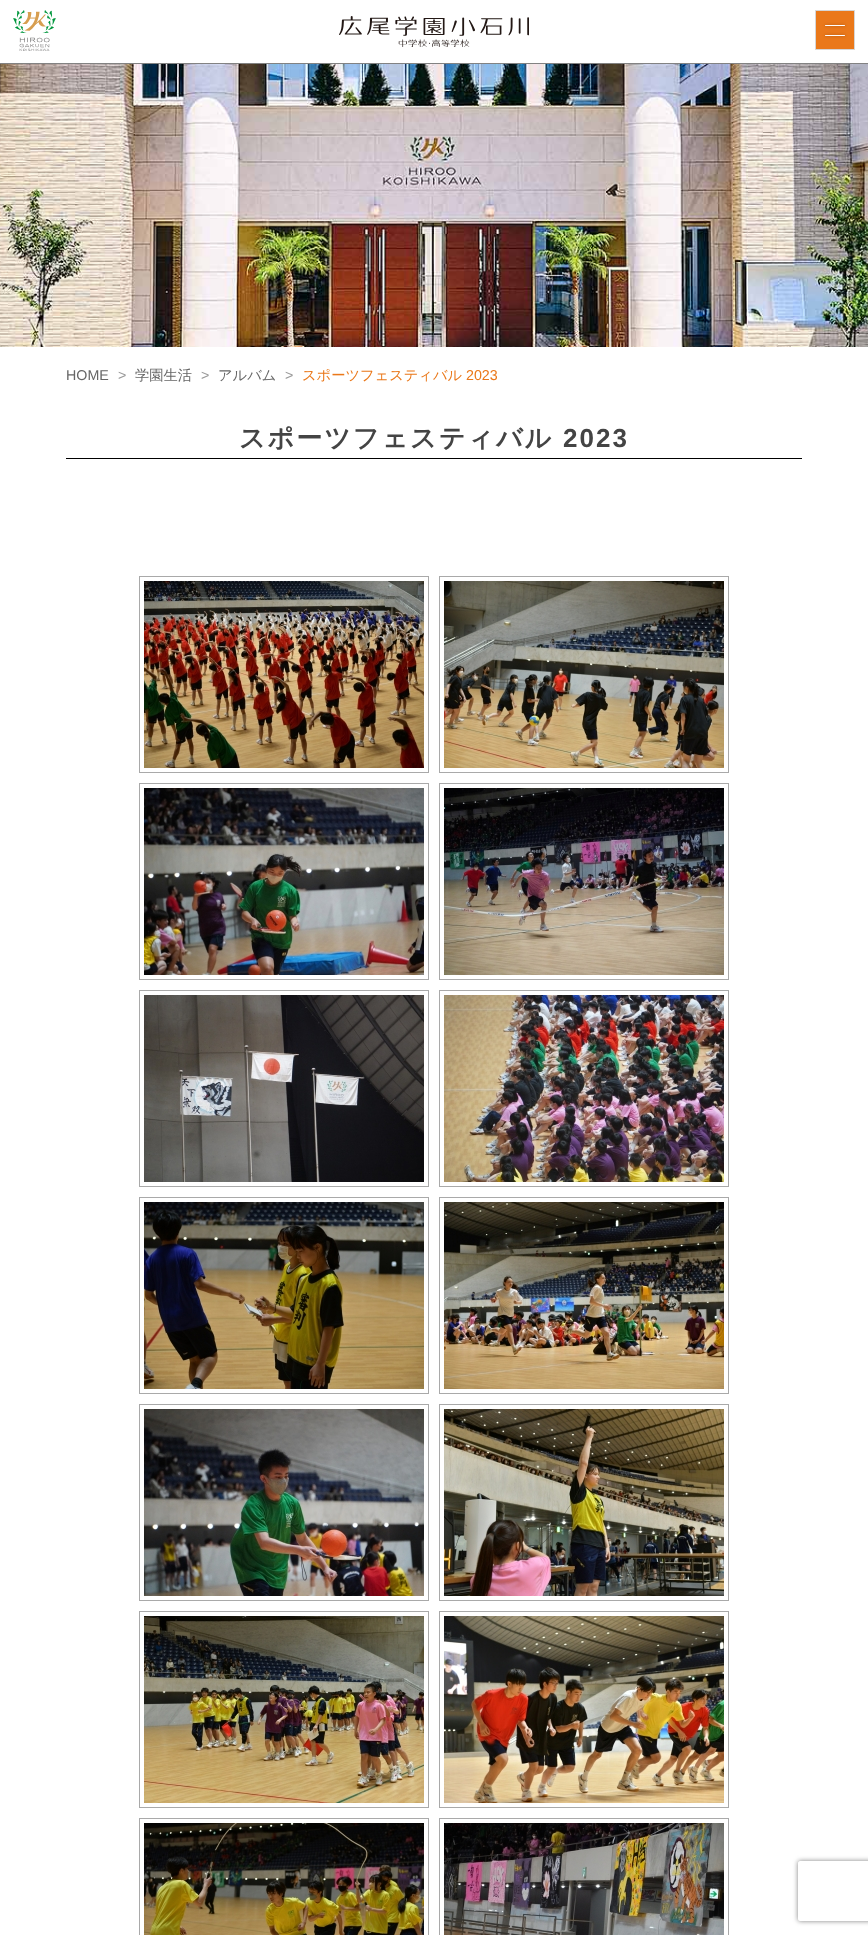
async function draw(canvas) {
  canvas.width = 868
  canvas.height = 1935
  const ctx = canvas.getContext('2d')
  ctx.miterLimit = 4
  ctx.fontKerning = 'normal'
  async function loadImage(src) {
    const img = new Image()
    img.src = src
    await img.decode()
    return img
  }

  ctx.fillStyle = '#fff'
  ctx.fillRect(0, 0, 868, 1935)
  ctx.fillStyle = '#828282'
  ctx.fillRect(0, 63, 868, 1)
  ctx.drawImage(await loadImage('image0.png'), 13, 10, 43, 41)
  ctx.drawImage(await loadImage('image1.png'), 339, 16, 190, 31)
  ctx.fillStyle = '#ea781a'
  ctx.beginPath()
  ctx.rect(815.5, 10.5, 39, 39)
  ctx.fill()
  ctx.strokeStyle = '#d6d6d6'
  ctx.stroke()
  ctx.fillStyle = '#0000004d'
  ctx.filter = 'blur(1.5px)'
  ctx.beginPath()
  ctx.roundRect(825, 25, 20, 1, 0.5)
  ctx.fill()
  ctx.filter = 'none'
  ctx.fillStyle = '#fff'
  ctx.beginPath()
  ctx.roundRect(825, 25, 20, 1, 0.5)
  ctx.fill()
  ctx.fillStyle = '#0000004d'
  ctx.filter = 'blur(1.5px)'
  ctx.beginPath()
  ctx.roundRect(825, 35, 20, 1, 0.5)
  ctx.fill()
  ctx.filter = 'none'
  ctx.fillStyle = '#fff'
  ctx.beginPath()
  ctx.roundRect(825, 35, 20, 1, 0.5)
  ctx.fill()
  ctx.drawImage(await loadImage('image2.png'), 0, 64, 868, 283)
  ctx.font = '14.25px Liberation Sans'
  ctx.fillStyle = '#666'
  ctx.fillText('HOME', 66, 380)
  ctx.fillStyle = '#999'
  ctx.fillText('>', 118, 380)
  ctx.font = '500 14.25px WenQuanYi Zen Hei'
  ctx.fillStyle = '#666'
  ctx.fillText('学園生活', 135, 380)
  ctx.font = '14.25px Liberation Sans'
  ctx.fillStyle = '#999'
  ctx.fillText('>', 201, 380)
  ctx.font = '500 14.25px WenQuanYi Zen Hei'
  ctx.fillStyle = '#666'
  ctx.fillText('アルバム', 218, 380)
  ctx.font = '14.25px Liberation Sans'
  ctx.fillStyle = '#999'
  ctx.fillText('>', 285, 380)
  ctx.font = '500 14.25px WenQuanYi Zen Hei'
  ctx.fillStyle = '#ea781a'
  ctx.fillText('スポーツフェスティバル', 302, 380)
  ctx.font = '14.25px Liberation Sans'
  ctx.fillText('2023', 466, 380)
  ctx.fillStyle = '#000'
  ctx.fillRect(66, 458, 736, 1)
  ctx.letterSpacing = '2px'
  ctx.font = 'bold 26px WenQuanYi Zen Hei'
  ctx.fillStyle = '#444'
  ctx.fillText('スポーツフェスティバル', 239, 447)
  ctx.font = 'bold 26px Liberation Sans'
  ctx.fillText('2023', 563, 447)
  ctx.strokeStyle = '#a9a9a9'
  ctx.strokeRect(139.5, 576.5, 289, 196)
  ctx.drawImage(await loadImage('image3.png'), 144, 581, 280, 187)
  ctx.strokeRect(439.5, 576.5, 289, 196)
  ctx.drawImage(await loadImage('image4.png'), 444, 581, 280, 187)
  ctx.strokeRect(139.5, 783.5, 289, 196)
  ctx.drawImage(await loadImage('image5.png'), 144, 788, 280, 187)
  ctx.strokeRect(439.5, 783.5, 289, 196)
  ctx.drawImage(await loadImage('image6.png'), 444, 788, 280, 187)
  ctx.strokeRect(139.5, 990.5, 289, 196)
  ctx.drawImage(await loadImage('image7.png'), 144, 995, 280, 187)
  ctx.strokeRect(439.5, 990.5, 289, 196)
  ctx.drawImage(await loadImage('image8.png'), 444, 995, 280, 187)
  ctx.strokeRect(139.5, 1197.5, 289, 196)
  ctx.drawImage(await loadImage('image9.png'), 144, 1202, 280, 187)
  ctx.strokeRect(439.5, 1197.5, 289, 196)
  ctx.drawImage(await loadImage('image10.png'), 444, 1202, 280, 187)
  ctx.strokeRect(139.5, 1404.5, 289, 196)
  ctx.drawImage(await loadImage('image11.png'), 144, 1409, 280, 187)
  ctx.strokeRect(439.5, 1404.5, 289, 196)
  ctx.drawImage(await loadImage('image12.png'), 444, 1409, 280, 187)
  ctx.strokeRect(139.5, 1611.5, 289, 196)
  ctx.drawImage(await loadImage('image13.png'), 144, 1616, 280, 187)
  ctx.strokeRect(439.5, 1611.5, 289, 196)
  ctx.drawImage(await loadImage('image14.png'), 444, 1616, 280, 187)
  ctx.strokeRect(139.5, 1818.5, 289, 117)
  ctx.drawImage(await loadImage('image15.png'), 144, 1823, 280, 112)
  ctx.strokeRect(439.5, 1818.5, 289, 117)
  ctx.drawImage(await loadImage('image16.png'), 444, 1823, 280, 112)
  ctx.save()
  ctx.beginPath()
  ctx.moveTo(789, 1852)
  ctx.lineTo(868, 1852)
  ctx.lineTo(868, 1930)
  ctx.lineTo(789, 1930)
  ctx.closePath()
  ctx.moveTo(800, 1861)
  ctx.lineTo(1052, 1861)
  ctx.bezierCurveTo(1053, 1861, 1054, 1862, 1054, 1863)
  ctx.lineTo(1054, 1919)
  ctx.bezierCurveTo(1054, 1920, 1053, 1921, 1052, 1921)
  ctx.lineTo(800, 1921)
  ctx.bezierCurveTo(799, 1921, 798, 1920, 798, 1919)
  ctx.lineTo(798, 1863)
  ctx.bezierCurveTo(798, 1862, 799, 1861, 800, 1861)
  ctx.closePath()
  ctx.clip('evenodd')
  ctx.fillStyle = '#808080'
  ctx.filter = 'blur(2.5px)'
  ctx.beginPath()
  ctx.roundRect(798, 1861, 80, 60, 2)
  ctx.fill()
  ctx.filter = 'none'
  ctx.restore()
}

draw(document.querySelector('canvas'))
